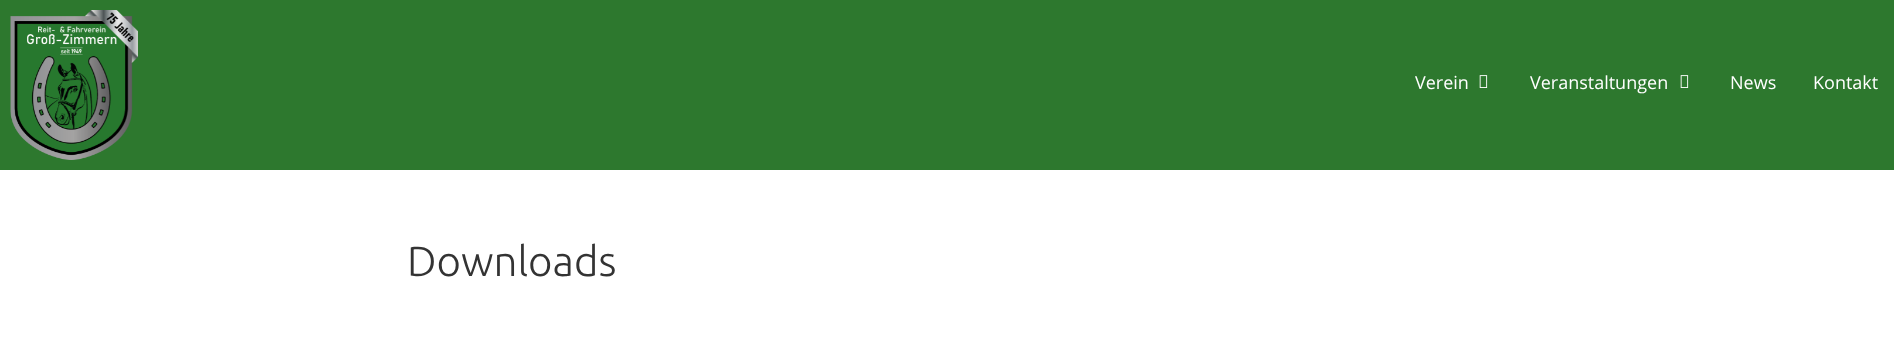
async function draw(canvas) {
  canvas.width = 1894
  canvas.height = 340
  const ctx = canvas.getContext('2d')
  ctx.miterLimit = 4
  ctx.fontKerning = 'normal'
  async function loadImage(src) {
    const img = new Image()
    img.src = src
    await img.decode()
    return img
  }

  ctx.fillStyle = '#fff'
  ctx.fillRect(0, 0, 1894, 340)
  ctx.fillStyle = '#2d782e'
  ctx.fillRect(0, 0, 1894, 170)
  ctx.drawImage(await loadImage('image0.png'), 10, 10, 128, 150)
  ctx.font = '18px Open Sans'
  ctx.fillStyle = '#fff'
  ctx.fillText('Verein', 1415, 89)
  ctx.drawImage(await loadImage('image1.png'), 1479, 75, 9, 13)
  ctx.fillText('Veranstaltungen', 1530, 89)
  ctx.drawImage(await loadImage('image1.png'), 1680, 75, 9, 13)
  ctx.fillText('News', 1730, 89)
  ctx.fillText('Kontakt', 1813, 89)
  ctx.font = '300 42px Ubuntu'
  ctx.fillStyle = '#333'
  ctx.fillText('Downloads', 407, 276)
}

draw(document.querySelector('canvas'))
